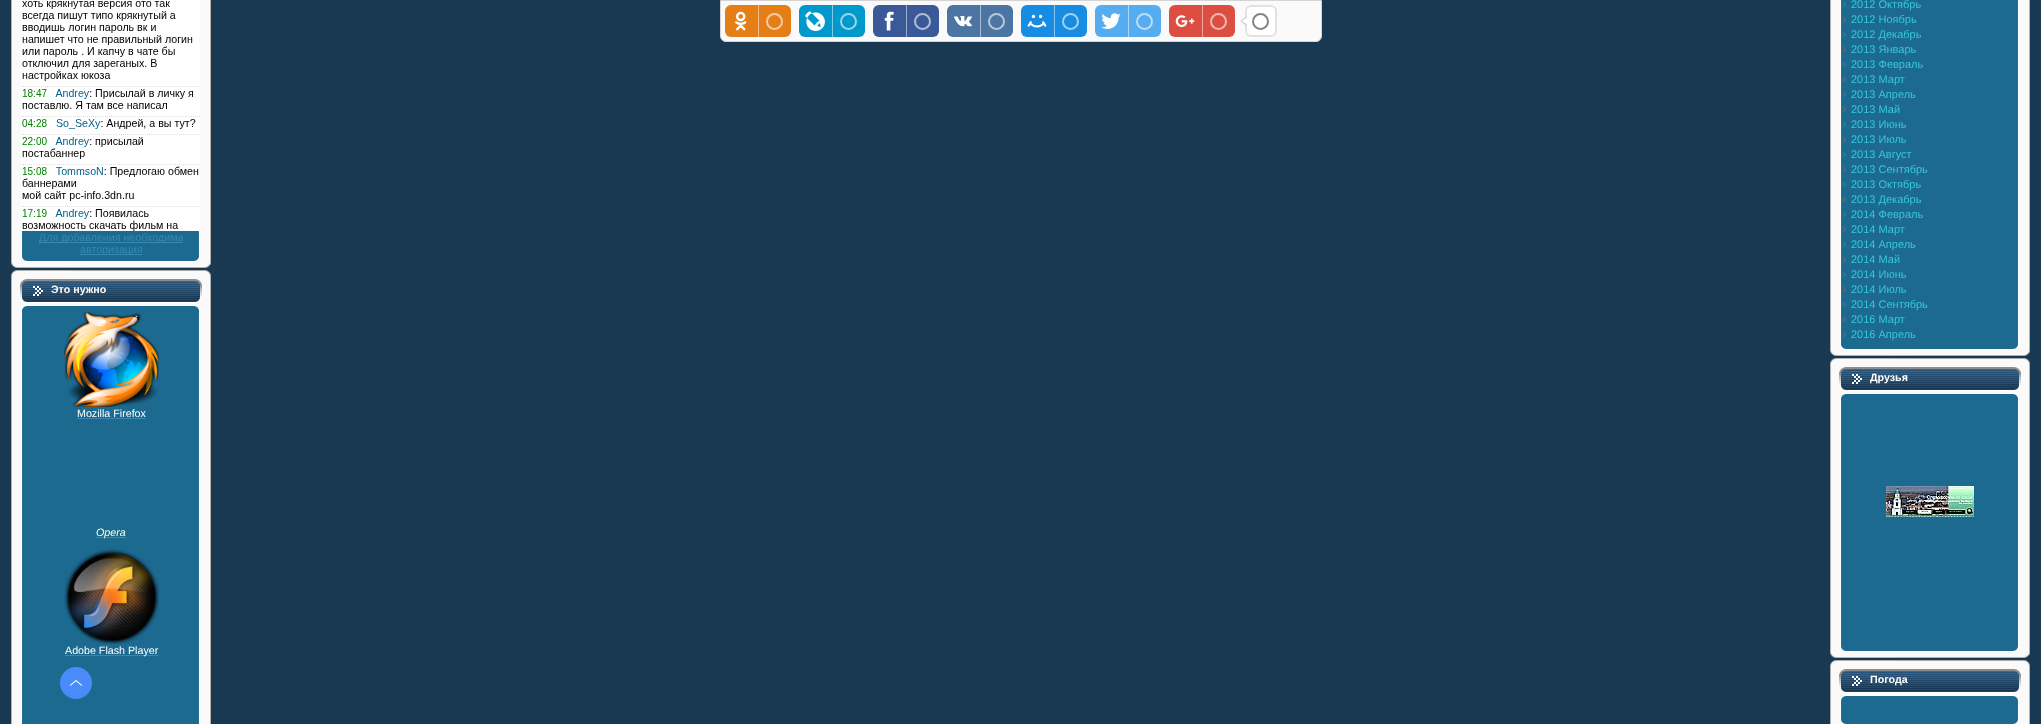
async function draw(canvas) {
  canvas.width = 2041
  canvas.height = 724
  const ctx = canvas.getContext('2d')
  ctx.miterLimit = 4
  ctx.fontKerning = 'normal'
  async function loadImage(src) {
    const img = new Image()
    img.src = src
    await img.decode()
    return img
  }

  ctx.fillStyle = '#193953'
  ctx.fillRect(0, 0, 2041, 724)
  ctx.drawImage(await loadImage('image0.png'), 11, 0, 200, 255)
  ctx.drawImage(await loadImage('image1.png'), 22, 0, 178, 231)
  ctx.fillStyle = '#3689b3'
  ctx.fillRect(39, 242, 144, 1)
  ctx.font = '10.7px Liberation Sans'
  ctx.fillText('Для добавления необходима', 39, 241)
  ctx.fillRect(80, 254, 62, 1)
  ctx.fillText('авторизация', 80, 253)
  ctx.drawImage(await loadImage('image2.png'), 11, 255, 200, 13)
  ctx.drawImage(await loadImage('image3.png'), 11, 270, 200, 42)
  ctx.font = 'bold 10.7px Liberation Sans'
  ctx.fillStyle = '#fff'
  ctx.fillText('Это нужно', 51, 293)
  ctx.drawImage(await loadImage('image4.png'), 11, 312, 200, 412)
  ctx.drawImage(await loadImage('image5.png'), 64, 312, 95, 95)
  ctx.font = '10.7px Liberation Sans'
  ctx.fillText('Mozilla Firefox', 77, 417)
  ctx.fillStyle = '#3689b3'
  ctx.fillRect(77, 418, 68, 1)
  ctx.fillRect(96, 537, 30, 1)
  ctx.font = 'italic 10.7px Liberation Sans'
  ctx.fillStyle = '#ffffe0'
  ctx.fillText('Opera', 96, 536)
  ctx.drawImage(await loadImage('image6.png'), 64, 549, 95, 95)
  ctx.fillStyle = '#3689b3'
  ctx.fillRect(65, 655, 93, 1)
  ctx.font = '10.7px Liberation Sans'
  ctx.fillStyle = '#fff'
  ctx.fillText('Adobe Flash Player', 65, 654)
  ctx.fillStyle = '#fafafa'
  ctx.beginPath()
  ctx.roundRect(720.5, 0.5, 601, 41, [0, 0, 5.5, 5.5])
  ctx.fill()
  ctx.strokeStyle = '#d4d4d4'
  ctx.stroke()
  ctx.fillStyle = '#e67e17'
  ctx.beginPath()
  ctx.roundRect(725, 5, 66, 32, 6)
  ctx.fill()
  ctx.drawImage(await loadImage('image7.png'), 735, 11, 12, 20)
  ctx.fillStyle = '#f3bf8b'
  ctx.fillRect(758, 5, 1, 32)
  ctx.beginPath()
  ctx.arc(774.5, 21.5, 7.5, 0, 2 * Math.PI)
  ctx.strokeStyle = '#f5cba2'
  ctx.lineWidth = 2
  ctx.stroke()
  ctx.fillStyle = '#09c'
  ctx.beginPath()
  ctx.roundRect(799, 5, 66, 32, 6)
  ctx.fill()
  ctx.drawImage(await loadImage('image8.png'), 805, 11, 20, 20)
  ctx.fillStyle = '#80cce6'
  ctx.fillRect(832, 5, 1, 32)
  ctx.beginPath()
  ctx.arc(848.5, 21.5, 7.5, 0, 2 * Math.PI)
  ctx.strokeStyle = '#99d6eb'
  ctx.stroke()
  ctx.fillStyle = '#3b5998'
  ctx.beginPath()
  ctx.roundRect(873, 5, 66, 32, 6)
  ctx.fill()
  ctx.drawImage(await loadImage('image9.png'), 884, 11, 10, 20)
  ctx.fillStyle = '#9daccc'
  ctx.fillRect(906, 5, 1, 32)
  ctx.beginPath()
  ctx.arc(922.5, 21.5, 7.5, 0, 2 * Math.PI)
  ctx.strokeStyle = '#b1bdd6'
  ctx.stroke()
  ctx.fillStyle = '#4d75a3'
  ctx.beginPath()
  ctx.roundRect(947, 5, 66, 32, 6)
  ctx.fill()
  ctx.drawImage(await loadImage('image10.png'), 954, 16, 18, 11)
  ctx.fillStyle = '#a6bad1'
  ctx.fillRect(980, 5, 1, 32)
  ctx.beginPath()
  ctx.arc(996.5, 21.5, 7.5, 0, 2 * Math.PI)
  ctx.strokeStyle = '#b8c8da'
  ctx.stroke()
  ctx.fillStyle = '#168de2'
  ctx.beginPath()
  ctx.roundRect(1021, 5, 66, 32, 6)
  ctx.fill()
  ctx.drawImage(await loadImage('image11.png'), 1027, 14, 20, 14)
  ctx.fillStyle = '#8bc6f1'
  ctx.fillRect(1054, 5, 1, 32)
  ctx.beginPath()
  ctx.arc(1070.5, 21.5, 7.5, 0, 2 * Math.PI)
  ctx.strokeStyle = '#a2d1f3'
  ctx.stroke()
  ctx.fillStyle = '#55acee'
  ctx.beginPath()
  ctx.roundRect(1095, 5, 66, 32, 6)
  ctx.fill()
  ctx.drawImage(await loadImage('image12.png'), 1101, 13, 20, 16)
  ctx.fillStyle = '#aad6f7'
  ctx.fillRect(1128, 5, 1, 32)
  ctx.beginPath()
  ctx.arc(1144.5, 21.5, 7.5, 0, 2 * Math.PI)
  ctx.strokeStyle = '#bbdef8'
  ctx.stroke()
  ctx.fillStyle = '#dc4e41'
  ctx.beginPath()
  ctx.roundRect(1169, 5, 66, 32, 6)
  ctx.fill()
  ctx.drawImage(await loadImage('image13.png'), 1175, 15, 20, 12)
  ctx.fillStyle = '#eea7a0'
  ctx.fillRect(1202, 5, 1, 32)
  ctx.beginPath()
  ctx.arc(1218.5, 21.5, 7.5, 0, 2 * Math.PI)
  ctx.strokeStyle = '#f1b8b3'
  ctx.stroke()
  ctx.fillStyle = '#fff'
  ctx.beginPath()
  ctx.roundRect(1246, 6, 30, 30, 5)
  ctx.fill()
  ctx.strokeStyle = '#e0e2e6'
  ctx.stroke()
  ctx.fillStyle = '#d8dcde'
  ctx.beginPath()
  ctx.moveTo(1247, 15)
  ctx.lineTo(1247, 27)
  ctx.lineTo(1240, 21)
  ctx.closePath()
  ctx.fill()
  ctx.beginPath()
  ctx.arc(1260.5, 21.5, 7.5, 0, 2 * Math.PI)
  ctx.strokeStyle = '#81858b'
  ctx.stroke()
  ctx.fillStyle = '#fff'
  ctx.beginPath()
  ctx.moveTo(1247, 18)
  ctx.lineTo(1247, 24)
  ctx.lineTo(1242, 21)
  ctx.closePath()
  ctx.fill()
  ctx.fillStyle = '#498bfa'
  ctx.beginPath()
  ctx.arc(76, 683, 16, 0, 2 * Math.PI)
  ctx.fill()
  ctx.drawImage(await loadImage('image14.png'), 69, 680, 14, 6)
  ctx.drawImage(await loadImage('image15.png'), 1830, 0, 200, 343)
  ctx.drawImage(await loadImage('image16.png'), 1841, 2, 5, 5)
  ctx.font = '11px Liberation Sans'
  ctx.fillStyle = '#36c8dd'
  ctx.fillText('2012 Октябрь', 1851, 8)
  ctx.drawImage(await loadImage('image17.png'), 1841, 17, 5, 5)
  ctx.fillText('2012 Ноябрь', 1851, 23)
  ctx.drawImage(await loadImage('image16.png'), 1841, 32, 5, 5)
  ctx.fillText('2012 Декабрь', 1851, 38)
  ctx.drawImage(await loadImage('image17.png'), 1841, 47, 5, 5)
  ctx.fillText('2013 Январь', 1851, 53)
  ctx.drawImage(await loadImage('image16.png'), 1841, 62, 5, 5)
  ctx.fillText('2013 Февраль', 1851, 68)
  ctx.drawImage(await loadImage('image17.png'), 1841, 77, 5, 5)
  ctx.fillText('2013 Март', 1851, 83)
  ctx.drawImage(await loadImage('image16.png'), 1841, 92, 5, 5)
  ctx.fillText('2013 Апрель', 1851, 98)
  ctx.drawImage(await loadImage('image17.png'), 1841, 107, 5, 5)
  ctx.fillText('2013 Май', 1851, 113)
  ctx.drawImage(await loadImage('image16.png'), 1841, 122, 5, 5)
  ctx.fillText('2013 Июнь', 1851, 128)
  ctx.drawImage(await loadImage('image17.png'), 1841, 137, 5, 5)
  ctx.fillText('2013 Июль', 1851, 143)
  ctx.drawImage(await loadImage('image16.png'), 1841, 152, 5, 5)
  ctx.fillText('2013 Август', 1851, 158)
  ctx.drawImage(await loadImage('image17.png'), 1841, 167, 5, 5)
  ctx.fillText('2013 Сентябрь', 1851, 173)
  ctx.drawImage(await loadImage('image16.png'), 1841, 182, 5, 5)
  ctx.fillText('2013 Октябрь', 1851, 188)
  ctx.drawImage(await loadImage('image17.png'), 1841, 197, 5, 5)
  ctx.fillText('2013 Декабрь', 1851, 203)
  ctx.drawImage(await loadImage('image16.png'), 1841, 212, 5, 5)
  ctx.fillText('2014 Февраль', 1851, 218)
  ctx.drawImage(await loadImage('image17.png'), 1841, 227, 5, 5)
  ctx.fillText('2014 Март', 1851, 233)
  ctx.drawImage(await loadImage('image16.png'), 1841, 242, 5, 5)
  ctx.fillText('2014 Апрель', 1851, 248)
  ctx.drawImage(await loadImage('image17.png'), 1841, 257, 5, 5)
  ctx.fillText('2014 Май', 1851, 263)
  ctx.drawImage(await loadImage('image16.png'), 1841, 272, 5, 5)
  ctx.fillText('2014 Июнь', 1851, 278)
  ctx.drawImage(await loadImage('image17.png'), 1841, 287, 5, 5)
  ctx.fillText('2014 Июль', 1851, 293)
  ctx.drawImage(await loadImage('image16.png'), 1841, 302, 5, 5)
  ctx.fillText('2014 Сентябрь', 1851, 308)
  ctx.drawImage(await loadImage('image17.png'), 1841, 317, 5, 5)
  ctx.fillText('2016 Март', 1851, 323)
  ctx.drawImage(await loadImage('image16.png'), 1841, 332, 5, 5)
  ctx.fillText('2016 Апрель', 1851, 338)
  ctx.drawImage(await loadImage('image2.png'), 1830, 343, 200, 13)
  ctx.drawImage(await loadImage('image3.png'), 1830, 358, 200, 42)
  ctx.font = 'bold 10.7px Liberation Sans'
  ctx.fillStyle = '#fff'
  ctx.fillText('Друзья', 1870, 381)
  ctx.drawImage(await loadImage('image18.png'), 1830, 400, 200, 245)
  ctx.drawImage(await loadImage('image19.png'), 1886, 486, 88, 31)
  ctx.drawImage(await loadImage('image2.png'), 1830, 645, 200, 13)
  ctx.drawImage(await loadImage('image3.png'), 1830, 660, 200, 42)
  ctx.fillText('Погода', 1870, 683)
  ctx.drawImage(await loadImage('image20.png'), 1830, 702, 200, 16)
  ctx.drawImage(await loadImage('image21.png'), 1830, 718, 200, 6)
}

draw(document.querySelector('canvas'))
